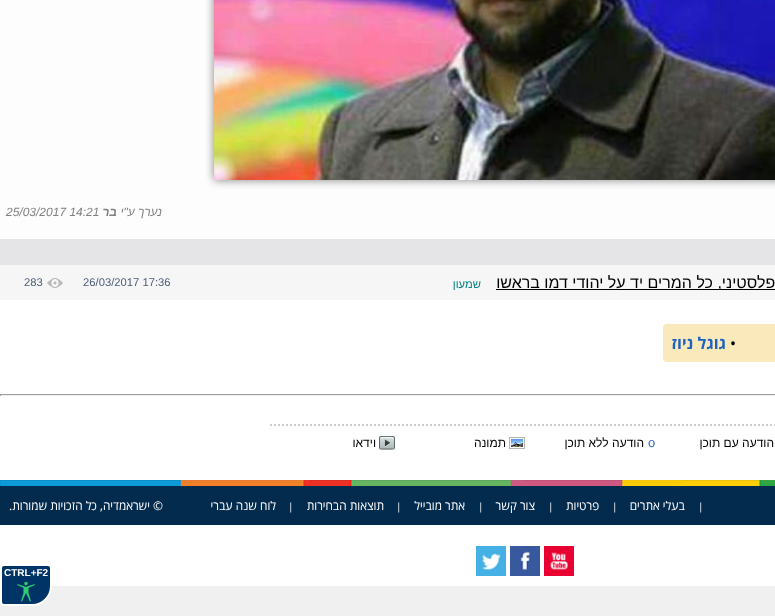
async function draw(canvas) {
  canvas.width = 775
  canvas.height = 616
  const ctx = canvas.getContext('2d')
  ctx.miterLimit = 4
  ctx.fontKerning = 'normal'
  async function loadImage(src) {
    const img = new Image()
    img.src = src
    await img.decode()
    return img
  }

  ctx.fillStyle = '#f0f0f0'
  ctx.fillRect(0, 0, 775, 616)
  ctx.fillStyle = '#fff'
  ctx.fillRect(0, 300, 775, 286)
  ctx.fillStyle = '#f6f6f6'
  ctx.fillRect(0, 265, 775, 35)
  ctx.fillStyle = '#fdfdfd'
  ctx.fillRect(0, 0, 775, 239)
  ctx.fillStyle = '#808080'
  ctx.filter = 'blur(5px)'
  ctx.beginPath()
  ctx.rect(214, -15, 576, 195)
  ctx.fill()
  ctx.filter = 'none'
  ctx.drawImage(await loadImage('image0.png'), 214, 0, 561, 180)
  ctx.direction = 'rtl'
  ctx.font = 'italic 12px Liberation Sans'
  ctx.fillText('נערך ע"י', 162, 216)
  ctx.font = 'italic bold 12px Liberation Sans'
  ctx.fillText('בר', 117, 216)
  ctx.direction = 'ltr'
  ctx.font = 'italic 12px Liberation Sans'
  ctx.fillText('25/03/2017 14:21', 6, 216)
  ctx.fillStyle = '#e5e5e8'
  ctx.fillRect(0, 239, 775, 26)
  ctx.fillStyle = '#000'
  ctx.fillRect(496, 289, 279, 1)
  ctx.direction = 'rtl'
  ctx.font = '16px Liberation Sans'
  ctx.fillText('ידע כל פלסטיני, כל המרים יד על יהודי דמו בראשו', 823, 288)
  ctx.font = '11.25px Liberation Sans'
  ctx.fillStyle = '#008080'
  ctx.fillText('שמעון', 481, 288)
  ctx.direction = 'ltr'
  ctx.fillStyle = '#4c5d77'
  ctx.fillText('26/03/2017 17:36', 83, 286)
  ctx.drawImage(await loadImage('image1.png'), 47, 278, 16, 10)
  ctx.fillText('283', 24, 286)
  ctx.fillStyle = '#fae9bb'
  ctx.beginPath()
  ctx.roundRect(662.5, 323.5, 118, 39, 4.5)
  ctx.fill()
  ctx.strokeStyle = '#fff'
  ctx.stroke()
  ctx.font = '16px Noto Sans'
  ctx.fillStyle = '#000'
  ctx.fillText('•', 730, 349)
  ctx.direction = 'rtl'
  ctx.font = 'bold 16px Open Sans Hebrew'
  ctx.fillStyle = '#1c62c1'
  ctx.fillText('גוגל ניוז', 726, 349)
  ctx.fillStyle = '#9f9f9f'
  ctx.fillRect(0, 394, 775, 1)
  ctx.fillStyle = '#eee'
  ctx.fillRect(0, 395, 775, 1)
  ctx.fillStyle = '#9f9f9f'
  ctx.fillRect(0, 394, 1, 2)
  ctx.beginPath()
  ctx.moveTo(270, 425)
  ctx.lineTo(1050, 425)
  ctx.strokeStyle = '#ccc'
  ctx.lineWidth = 2
  ctx.setLineDash([2, 2])
  ctx.stroke()
  ctx.font = '12px Liberation Sans'
  ctx.fillStyle = '#000'
  ctx.fillText('הודעה עם תוכן', 774, 447)
  ctx.direction = 'ltr'
  ctx.font = '13px Liberation Sans'
  ctx.fillStyle = '#36c'
  ctx.fillText('o', 648, 447)
  ctx.direction = 'rtl'
  ctx.font = '12px Liberation Sans'
  ctx.fillStyle = '#000'
  ctx.fillText('הודעה ללא תוכן', 644, 447)
  ctx.drawImage(await loadImage('image2.png'), 509, 437, 16, 12)
  ctx.fillText('תמונה', 506, 447)
  ctx.drawImage(await loadImage('image3.png'), 379, 436, 16, 14)
  ctx.fillText('וידאו', 376, 447)
  ctx.fillStyle = '#032b4e'
  ctx.fillRect(0, 480, 775, 45)
  ctx.drawImage(await loadImage('image4.png'), 0, 480, 775, 6)
  ctx.direction = 'ltr'
  ctx.font = '10px Open Sans Hebrew'
  ctx.fillStyle = '#fff'
  ctx.fillText('|', 698, 510)
  ctx.direction = 'rtl'
  ctx.font = '12px Open Sans Hebrew'
  ctx.fillText('בעלי אתרים', 685, 510)
  ctx.direction = 'ltr'
  ctx.font = '10px Open Sans Hebrew'
  ctx.fillText('|', 612, 510)
  ctx.direction = 'rtl'
  ctx.font = '12px Open Sans Hebrew'
  ctx.fillText('פרטיות', 599, 510)
  ctx.direction = 'ltr'
  ctx.font = '10px Open Sans Hebrew'
  ctx.fillText('|', 548, 510)
  ctx.direction = 'rtl'
  ctx.font = '12px Open Sans Hebrew'
  ctx.fillText('צור קשר', 535, 510)
  ctx.direction = 'ltr'
  ctx.font = '10px Open Sans Hebrew'
  ctx.fillText('|', 478, 510)
  ctx.direction = 'rtl'
  ctx.font = '12px Open Sans Hebrew'
  ctx.fillText('אתר מובייל', 465, 510)
  ctx.direction = 'ltr'
  ctx.font = '10px Open Sans Hebrew'
  ctx.fillText('|', 396, 510)
  ctx.direction = 'rtl'
  ctx.font = '12px Open Sans Hebrew'
  ctx.fillText('תוצאות הבחירות', 384, 510)
  ctx.direction = 'ltr'
  ctx.font = '10px Open Sans Hebrew'
  ctx.fillText('|', 288, 510)
  ctx.direction = 'rtl'
  ctx.font = '12px Open Sans Hebrew'
  ctx.fillText('לוח שנה עברי', 276, 510)
  ctx.fillText('© ישראמדיה, כל הזכויות שמורות.', 163, 510)
  ctx.drawImage(await loadImage('image5.png'), 544, 546, 30, 30)
  ctx.drawImage(await loadImage('image6.png'), 510, 546, 30, 30)
  ctx.drawImage(await loadImage('image7.png'), 476, 546, 30, 30)
  ctx.fillStyle = '#003466'
  ctx.beginPath()
  ctx.roundRect(1, 565, 50, 40, [3, 3, 19, 3])
  ctx.fill()
  ctx.strokeStyle = '#fff'
  ctx.setLineDash([])
  ctx.stroke()
  ctx.direction = 'ltr'
  ctx.font = 'bold 10px Liberation Sans'
  ctx.fillStyle = '#fff'
  ctx.fillText('CTRL+F2', 4, 576)
  ctx.drawImage(await loadImage('image8.png'), 17, 582, 18, 20)
}

draw(document.querySelector('canvas'))
